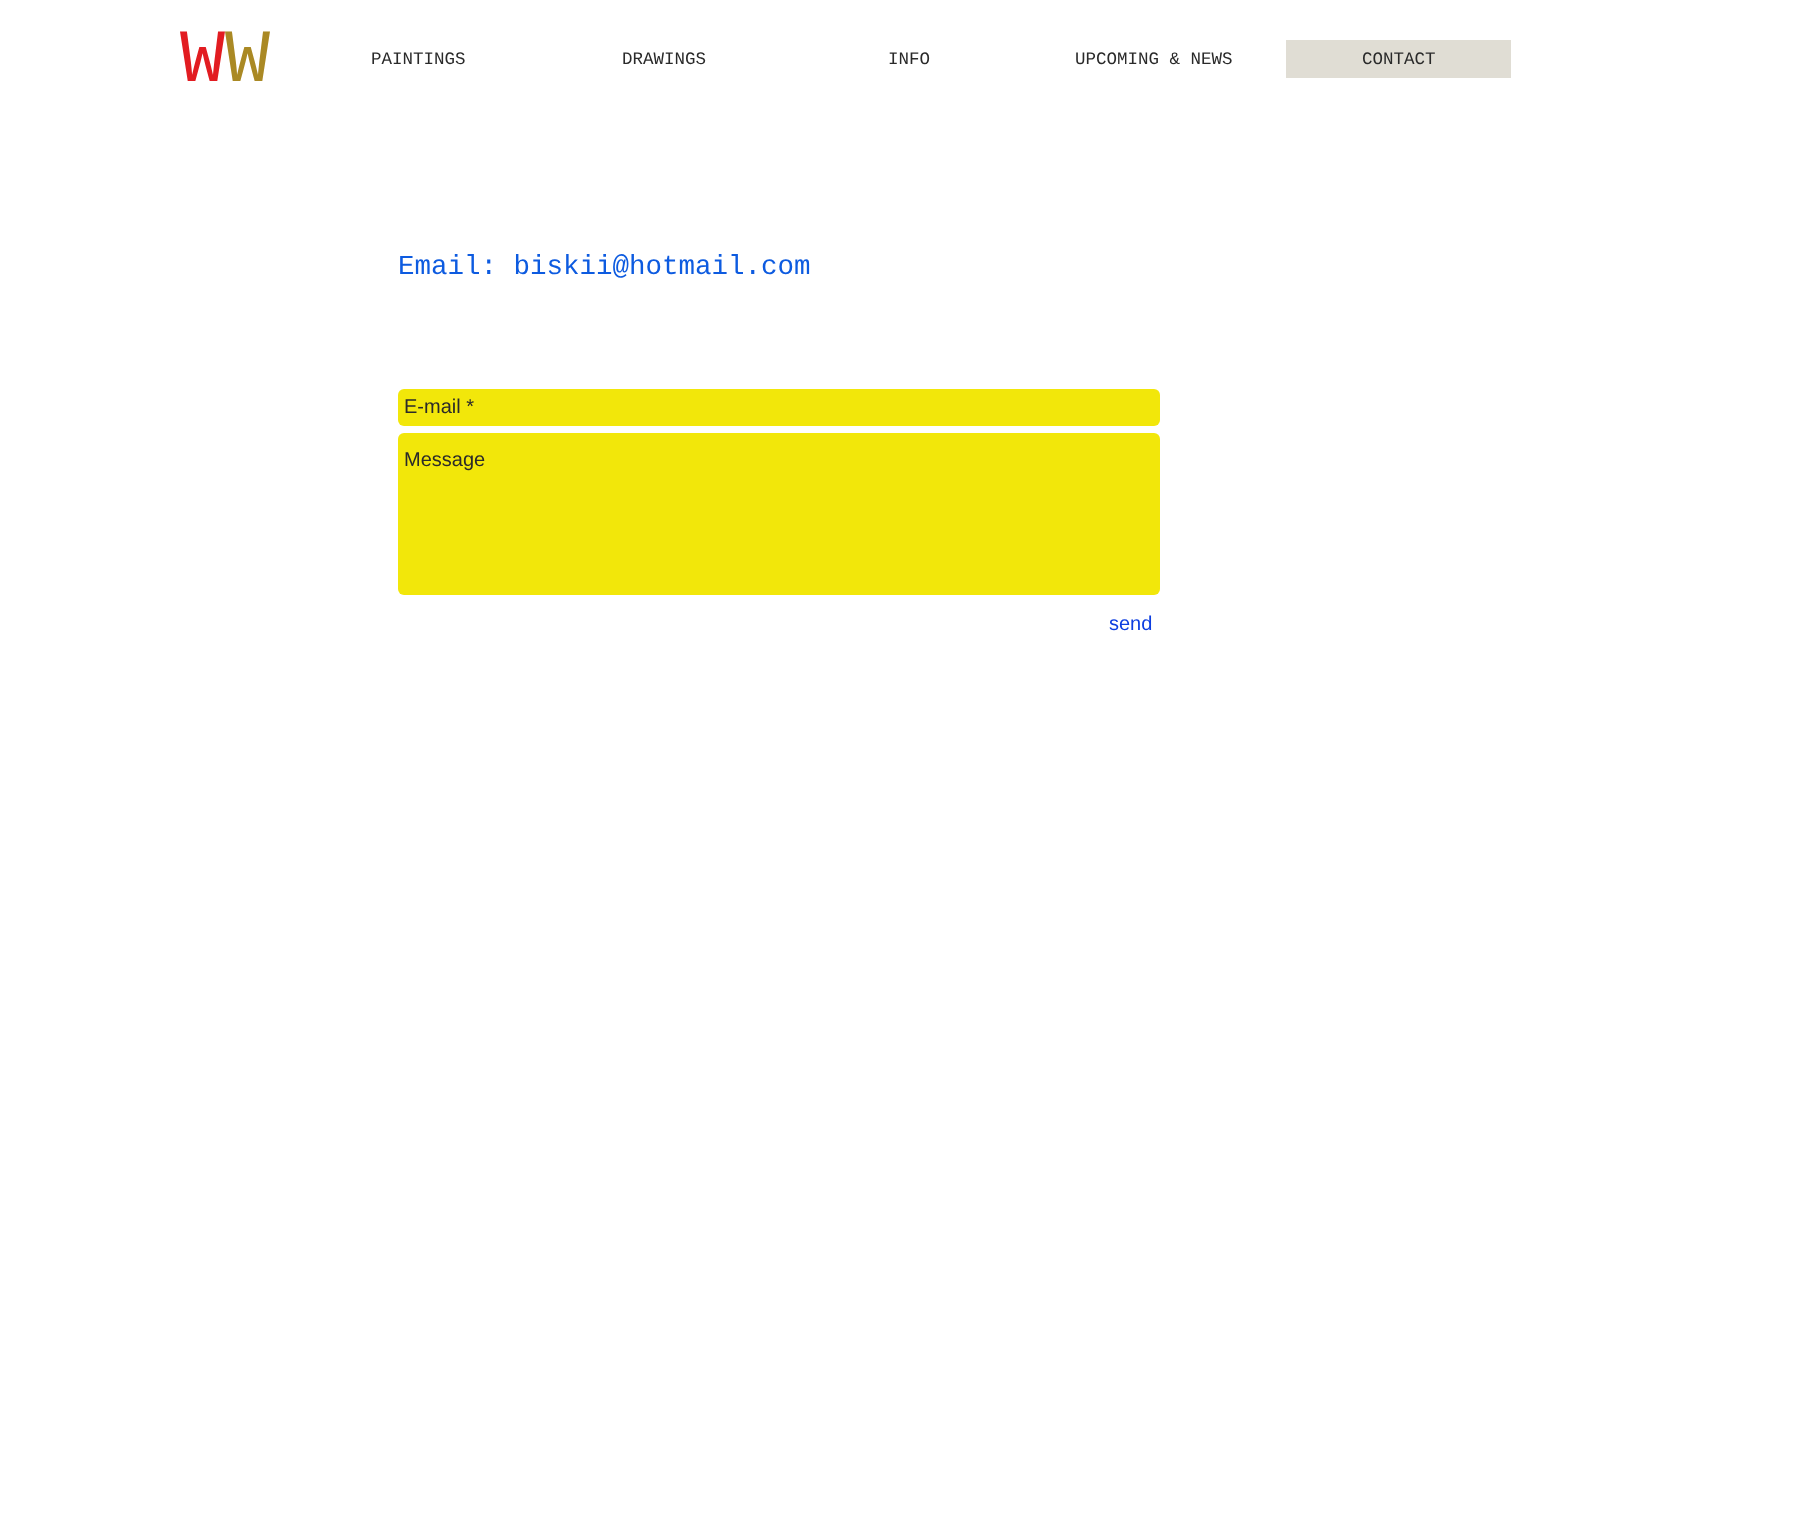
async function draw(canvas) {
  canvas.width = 1817
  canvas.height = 1533
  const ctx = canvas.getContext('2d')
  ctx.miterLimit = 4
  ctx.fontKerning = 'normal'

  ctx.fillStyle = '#fff'
  ctx.fillRect(0, 0, 1817, 1533)
  ctx.font = '75px Liberation Mono'
  ctx.fillStyle = '#e21c21'
  ctx.fillText('W', 180, 81)
  ctx.fillStyle = '#aa8924'
  ctx.fillText('W', 225, 81)
  ctx.font = '17.5px Liberation Mono'
  ctx.fillStyle = '#2a2a2a'
  ctx.fillText('PAINTINGS', 371, 64)
  ctx.fillText('DRAWINGS', 622, 64)
  ctx.fillText('INFO', 888, 64)
  ctx.fillText('UPCOMING & NEWS', 1075, 64)
  ctx.fillStyle = '#e0ddd4'
  ctx.fillRect(1286, 40, 225, 38)
  ctx.fillStyle = '#2a2a2a'
  ctx.fillText('CONTACT', 1362, 64)
  ctx.font = '27.5px Liberation Mono'
  ctx.fillStyle = '#0d5be0'
  ctx.fillText('Email: biskii@hotmail.com', 398, 274)
  ctx.fillStyle = '#f2e70a'
  ctx.beginPath()
  ctx.roundRect(398, 389, 762, 37, 6)
  ctx.fill()
  ctx.font = '20px Liberation Sans'
  ctx.fillStyle = '#2a2a2a'
  ctx.fillText('E-mail *', 404, 413)
  ctx.fillStyle = '#f2e70a'
  ctx.beginPath()
  ctx.roundRect(398, 433, 762, 162, 6)
  ctx.fill()
  ctx.fillStyle = '#2a2a2a'
  ctx.fillText('Message', 404, 466)
  ctx.fillStyle = '#0d3ee0'
  ctx.fillText('send', 1109, 630)
}

draw(document.querySelector('canvas'))
